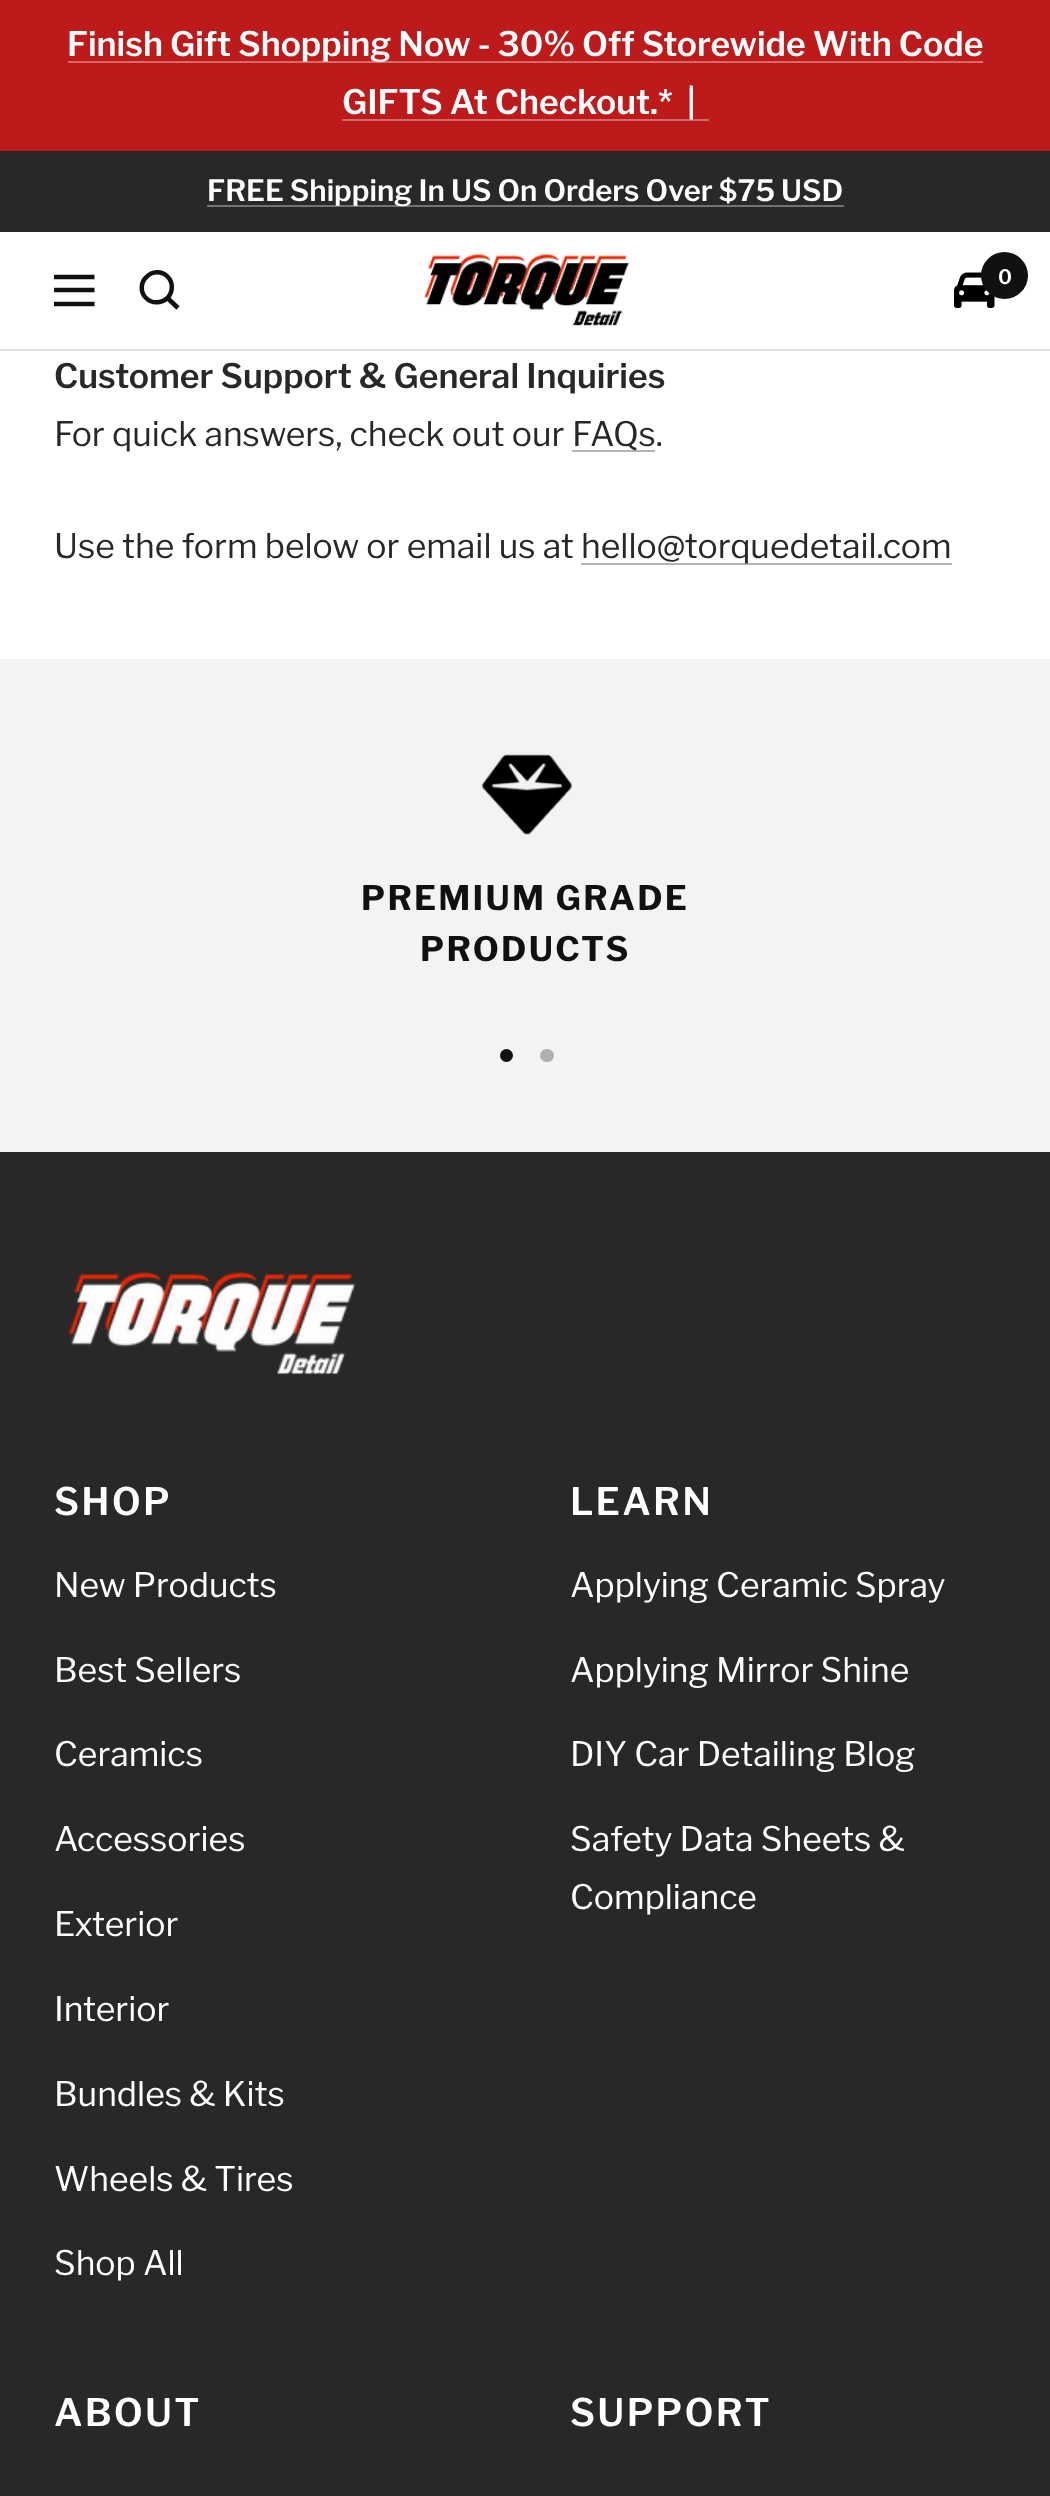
async function draw(canvas) {
  canvas.width = 1050
  canvas.height = 2496
  const ctx = canvas.getContext('2d')
  ctx.miterLimit = 4
  ctx.fontKerning = 'normal'
  async function loadImage(src) {
    const img = new Image()
    img.src = src
    await img.decode()
    return img
  }

  ctx.fillStyle = '#fff'
  ctx.fillRect(0, 0, 1050, 2496)
  ctx.fillStyle = '#bd1b1b'
  ctx.fillRect(0, 0, 1050, 151)
  ctx.fillStyle = '#d46a6a'
  ctx.fillRect(68, 61, 915, 2)
  ctx.font = '600 33.75px Libre Franklin'
  ctx.fillStyle = '#fefefe'
  ctx.fillText('Finish Gift Shopping Now - 30% Off Storewide With Code', 67, 56)
  ctx.fillStyle = '#d46a6a'
  ctx.fillRect(342, 119, 367, 2)
  ctx.fillStyle = '#fefefe'
  ctx.fillText('GIFTS At Checkout.*  |', 342, 114)
  ctx.fillStyle = '#282828'
  ctx.fillRect(0, 151, 1050, 81)
  ctx.fillStyle = '#737373'
  ctx.fillRect(207, 205, 637, 2)
  ctx.font = '600 29.25px Libre Franklin'
  ctx.fillStyle = '#fefefe'
  ctx.fillText('FREE Shipping In US On Orders Over $75 USD', 207, 201)
  ctx.fillStyle = '#dfdfdf'
  ctx.beginPath()
  ctx.moveTo(0, 349)
  ctx.lineTo(0, 351)
  ctx.lineTo(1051, 351)
  ctx.lineTo(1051, 234)
  ctx.lineTo(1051, 349)
  ctx.closePath()
  ctx.fill()
  ctx.beginPath()
  ctx.moveTo(54, 277)
  ctx.lineTo(94.5, 277)
  ctx.moveTo(54, 304)
  ctx.lineTo(94.5, 304)
  ctx.closePath()
  ctx.moveTo(54, 290)
  ctx.lineTo(94.5, 290)
  ctx.closePath()
  ctx.strokeStyle = '#111'
  ctx.lineWidth = 4.5
  ctx.stroke()
  ctx.beginPath()
  ctx.moveTo(167.5, 298)
  ctx.bezierCurveTo(173, 292, 173.5, 282.5, 167.5, 276.5)
  ctx.bezierCurveTo(161.5, 270.5, 152, 271, 146.5, 277)
  ctx.bezierCurveTo(140.5, 282.5, 140, 292, 146, 298)
  ctx.bezierCurveTo(152, 304, 161.5, 303.5, 167.5, 298)
  ctx.closePath()
  ctx.moveTo(167.5, 298)
  ctx.lineTo(178, 308)
  ctx.stroke()
  ctx.drawImage(await loadImage('image0.png'), 424, 254, 205, 72)
  ctx.drawImage(await loadImage('image1.png'), 954, 272, 41, 36)
  ctx.fillStyle = '#111'
  ctx.beginPath()
  ctx.arc(1004.5, 275.5, 23.5, 0, 2 * Math.PI)
  ctx.fill()
  ctx.font = '600 20px Libre Franklin'
  ctx.fillStyle = '#fefefe'
  ctx.fillText('0', 998, 284)
  ctx.font = '600 33.75px Libre Franklin'
  ctx.fillStyle = '#282828'
  ctx.fillText('Customer Support & General Inquiries', 54, 388)
  ctx.font = '33.75px Libre Franklin'
  ctx.fillText('For quick answers, check out our', 54, 446)
  ctx.fillStyle = '#b4b4b4'
  ctx.fillRect(572, 450, 83, 2)
  ctx.fillStyle = '#282828'
  ctx.fillText('FAQs.', 572, 446)
  ctx.fillText('Use the form below or email us at', 54, 558)
  ctx.fillStyle = '#b4b4b4'
  ctx.fillRect(581, 563, 371, 2)
  ctx.fillStyle = '#282828'
  ctx.fillText('hello@torquedetail.com', 581, 558)
  ctx.fillStyle = '#f3f3f3'
  ctx.fillRect(0, 659, 1050, 493)
  ctx.drawImage(await loadImage('image2.png'), 481, 754, 91, 81)
  ctx.letterSpacing = '2.25px'
  ctx.font = 'bold 33.75px Libre Franklin'
  ctx.fillStyle = '#111'
  ctx.fillText('PREMIUM GRADE', 361, 910)
  ctx.fillText('PRODUCTS', 420, 961)
  ctx.beginPath()
  ctx.arc(506.5, 1055.5, 6.5, 0, 2 * Math.PI)
  ctx.fill()
  ctx.fillStyle = '#afafaf'
  ctx.beginPath()
  ctx.roundRect(540, 1049, 14, 13, 6.5)
  ctx.fill()
  ctx.fillStyle = '#282828'
  ctx.fillRect(0, 1152, 1050, 1344)
  ctx.drawImage(await loadImage('image3.png'), 68, 1272, 288, 103)
  ctx.font = '600 37.75px Libre Franklin'
  ctx.fillStyle = '#fefefe'
  ctx.fillText('SHOP', 54, 1515)
  ctx.letterSpacing = '0px'
  ctx.font = '33.75px Libre Franklin'
  ctx.fillText('New Products', 54, 1597)
  ctx.fillText('Best Sellers', 54, 1682)
  ctx.fillText('Ceramics', 54, 1766)
  ctx.fillText('Accessories', 54, 1851)
  ctx.fillText('Exterior', 54, 1936)
  ctx.fillText('Interior', 54, 2021)
  ctx.fillText('Bundles & Kits', 54, 2106)
  ctx.fillText('Wheels & Tires', 54, 2191)
  ctx.fillText('Shop All', 54, 2275)
  ctx.letterSpacing = '2.25px'
  ctx.font = '600 37.75px Libre Franklin'
  ctx.fillText('LEARN', 570, 1515)
  ctx.letterSpacing = '0px'
  ctx.font = '33.75px Libre Franklin'
  ctx.fillText('Applying Ceramic Spray', 570, 1597)
  ctx.fillText('Applying Mirror Shine', 570, 1682)
  ctx.fillText('DIY Car Detailing Blog', 570, 1766)
  ctx.fillText('Safety Data Sheets &', 570, 1851)
  ctx.fillText('Compliance', 570, 1909)
  ctx.letterSpacing = '2.25px'
  ctx.font = '600 37.75px Libre Franklin'
  ctx.fillText('ABOUT', 54, 2426)
  ctx.fillText('SUPPORT', 570, 2426)
}

draw(document.querySelector('canvas'))
